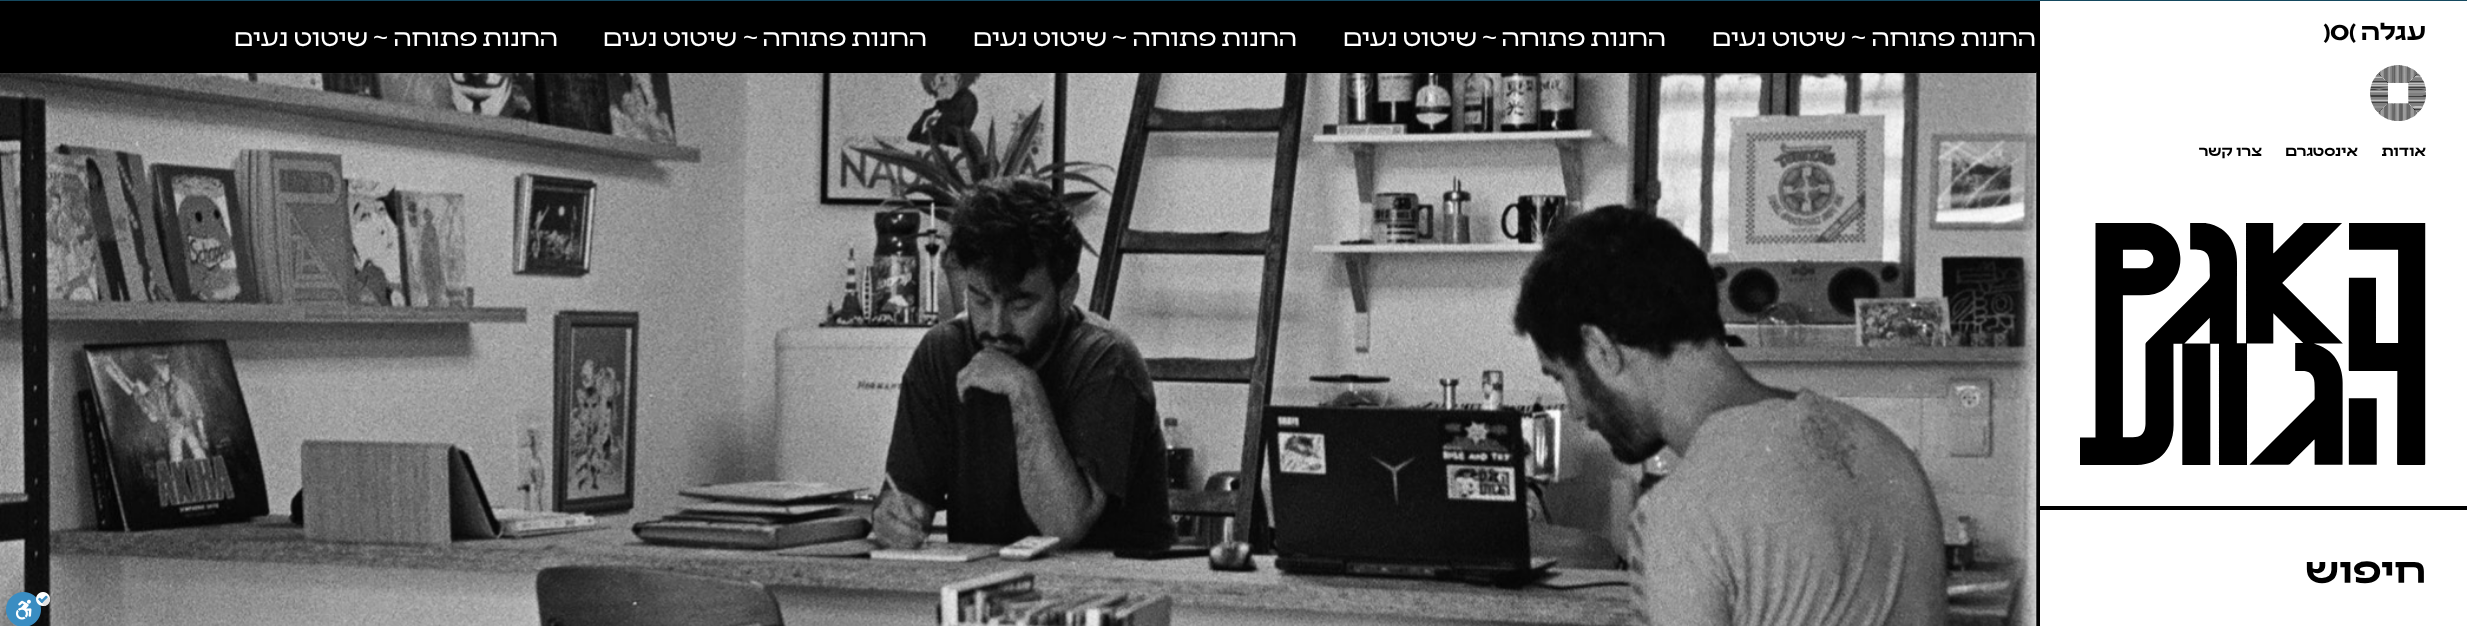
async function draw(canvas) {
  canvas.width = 2467
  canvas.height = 626
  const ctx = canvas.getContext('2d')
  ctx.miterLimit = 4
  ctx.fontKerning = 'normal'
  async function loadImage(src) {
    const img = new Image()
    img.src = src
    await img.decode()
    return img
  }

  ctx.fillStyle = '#fff'
  ctx.fillRect(0, 0, 2467, 626)
  ctx.fillStyle = '#000'
  ctx.fillRect(2036, 0, 4, 626)
  ctx.fillStyle = '#15495f'
  ctx.fillRect(0, 0, 2467, 1)
  ctx.drawImage(await loadImage('image3.png'), 0, 72, 2037, 554)
  ctx.drawImage(await loadImage('image0.png'), 6, 592, 44, 34)
  ctx.direction = 'rtl'
  ctx.font = 'bold 25.75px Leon'
  ctx.fillStyle = '#000'
  ctx.fillText('עגלה', 2426, 40)
  ctx.direction = 'ltr'
  ctx.fillText(')0(', 2323, 40)
  ctx.drawImage(await loadImage('image1.png'), 2370, 65, 56, 56)
  ctx.direction = 'rtl'
  ctx.font = 'bold 15px Leon'
  ctx.fillText('אודות', 2426, 156)
  ctx.fillText('אינסטגרם', 2358, 156)
  ctx.fillText('צרו קשר', 2262, 156)
  ctx.fillRect(2040, 506, 427, 4)
  ctx.drawImage(await loadImage('image2.png'), 2080, 223, 346, 242)
  ctx.font = 'bold 38.5px Leon'
  ctx.fillText('חיפוש', 2426, 583)
  ctx.fillRect(0, 1, 2036, 72)
  ctx.font = '25.75px Leon'
  ctx.fillStyle = '#fff'
  ctx.fillText('החנות פתוחה', 2036, 46)
  ctx.font = '25.75px Liberation Sans'
  ctx.fillText('~', 1866, 46)
  ctx.font = '25.75px Leon'
  ctx.fillText('שיטוט נעים', 1846, 46)
  ctx.fillText('החנות פתוחה', 1666, 46)
  ctx.font = '25.75px Liberation Sans'
  ctx.fillText('~', 1497, 46)
  ctx.font = '25.75px Leon'
  ctx.fillText('שיטוט נעים', 1477, 46)
  ctx.fillText('החנות פתוחה', 1297, 46)
  ctx.font = '25.75px Liberation Sans'
  ctx.fillText('~', 1127, 46)
  ctx.font = '25.75px Leon'
  ctx.fillText('שיטוט נעים', 1107, 46)
  ctx.fillText('החנות פתוחה', 927, 46)
  ctx.font = '25.75px Liberation Sans'
  ctx.fillText('~', 758, 46)
  ctx.font = '25.75px Leon'
  ctx.fillText('שיטוט נעים', 737, 46)
  ctx.fillText('החנות פתוחה', 558, 46)
  ctx.font = '25.75px Liberation Sans'
  ctx.fillText('~', 388, 46)
  ctx.font = '25.75px Leon'
  ctx.fillText('שיטוט נעים', 368, 46)
}

draw(document.querySelector('canvas'))
